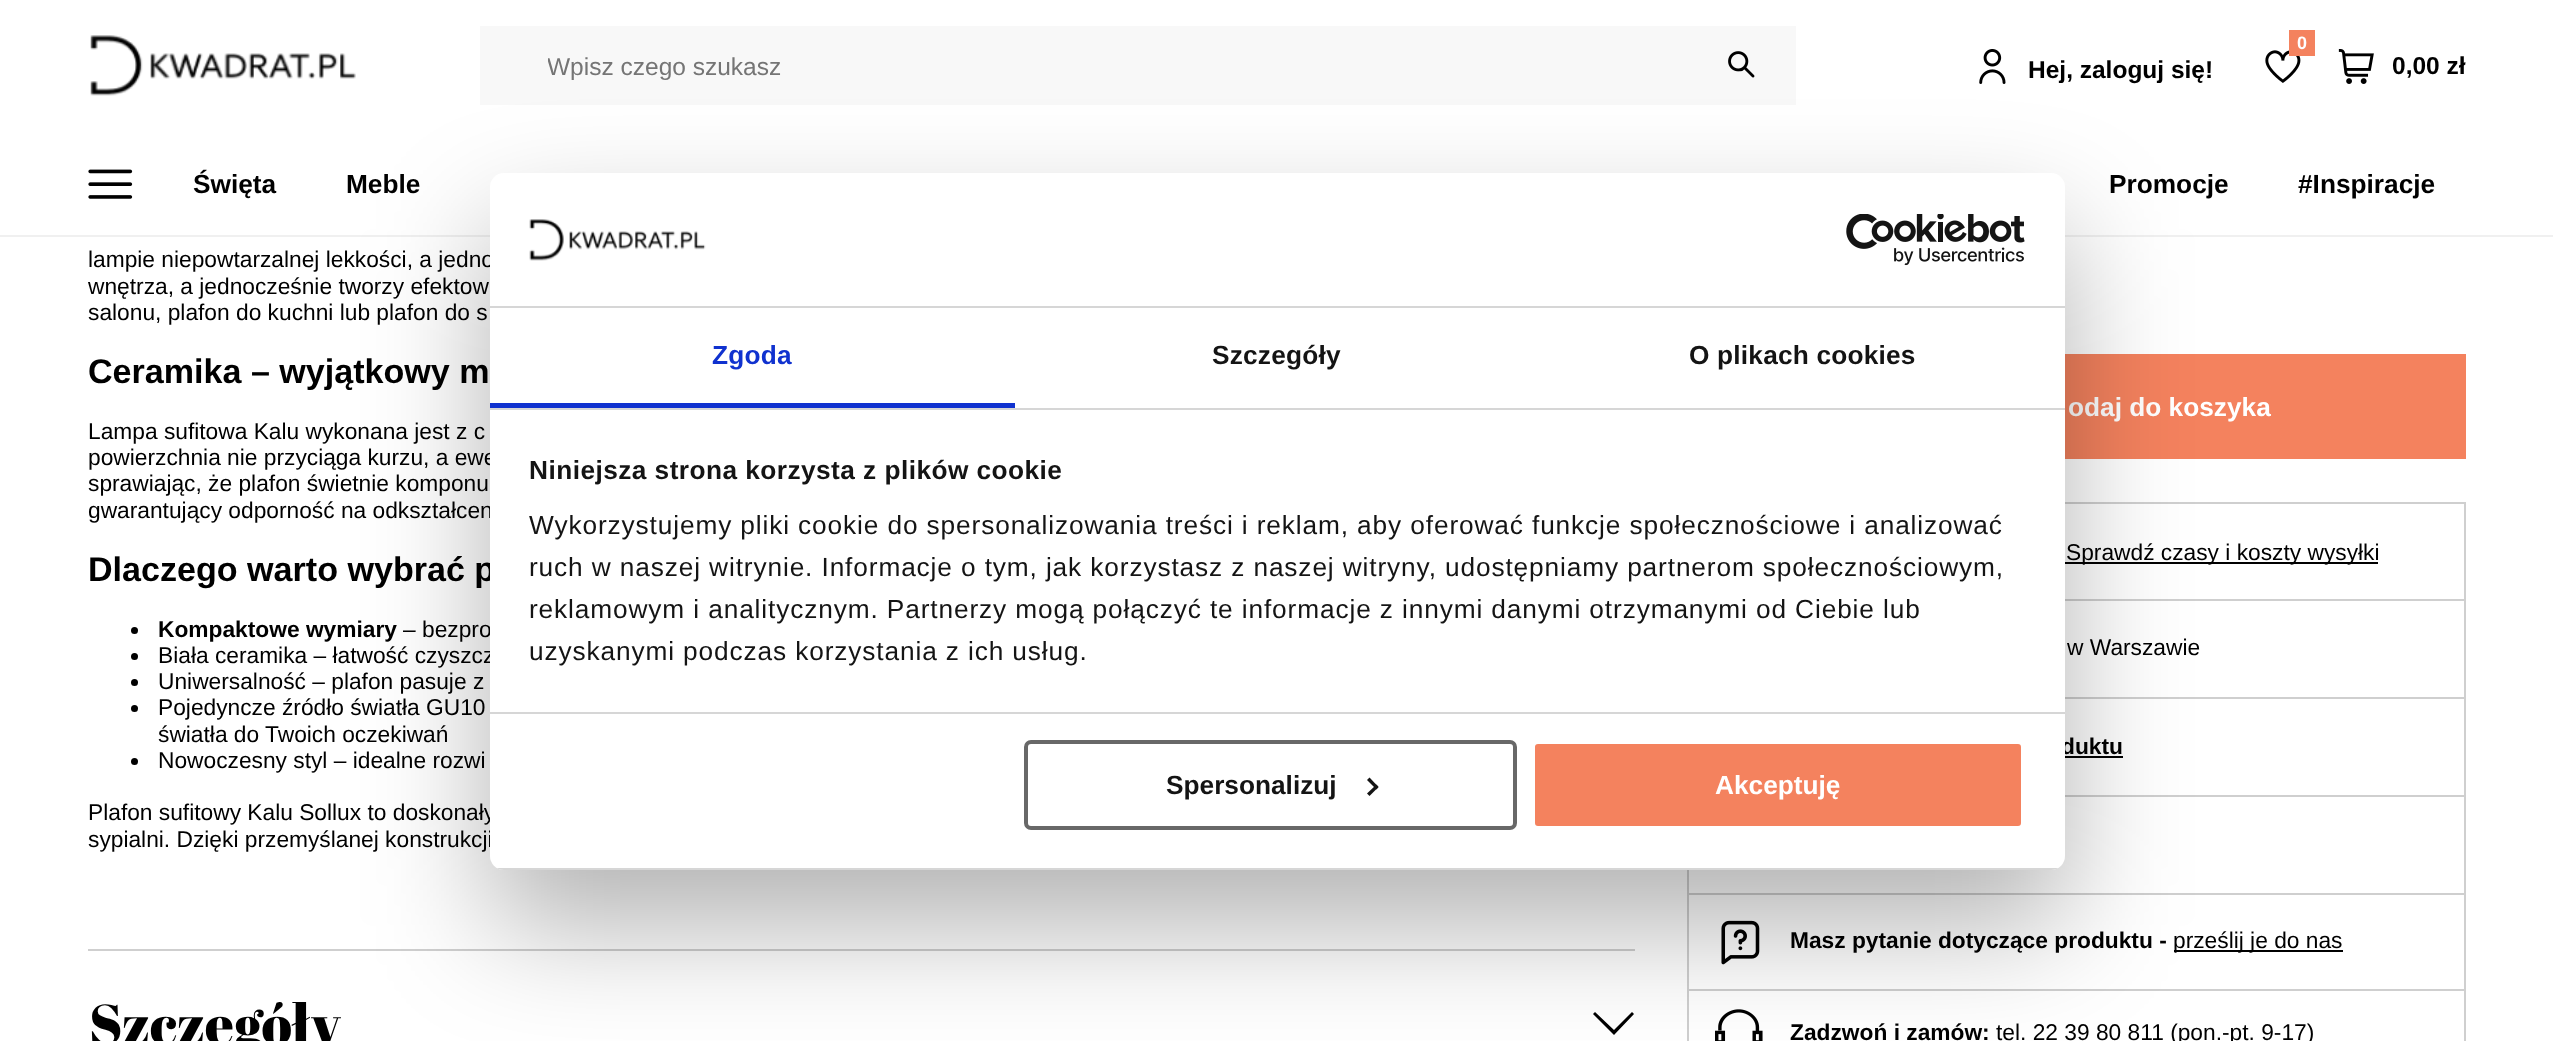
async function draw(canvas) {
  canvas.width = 2553
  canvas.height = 1041
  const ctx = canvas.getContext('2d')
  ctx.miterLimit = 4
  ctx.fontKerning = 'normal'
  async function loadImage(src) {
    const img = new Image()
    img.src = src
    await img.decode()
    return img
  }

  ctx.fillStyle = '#fff'
  ctx.fillRect(0, 0, 2553, 1041)
  ctx.drawImage(await loadImage('image0.png'), 90, 35, 266, 61)
  ctx.fillStyle = '#f8f8f8'
  ctx.fillRect(480, 26, 1316, 79)
  ctx.save()
  ctx.beginPath()
  ctx.rect(548, 53, 1115, 28)
  ctx.clip()
  ctx.font = '24.5px Liberation Sans'
  ctx.fillStyle = '#757575'
  ctx.fillText('Wpisz czego szukasz', 547, 75)
  ctx.restore()
  ctx.drawImage(await loadImage('image1.png'), 1728, 51, 27, 27)
  ctx.drawImage(await loadImage('image2.png'), 2265, 50, 36, 33)
  ctx.fillStyle = '#f4825e'
  ctx.fillRect(2289, 30, 26, 26)
  ctx.font = 'bold 18px Liberation Sans'
  ctx.fillStyle = '#fff'
  ctx.fillText('0', 2297, 49)
  ctx.drawImage(await loadImage('image3.png'), 1979, 49, 27, 35)
  ctx.font = 'bold 24.5px Liberation Sans'
  ctx.fillStyle = '#000'
  ctx.fillText('Hej, zaloguj się!', 2028, 78)
  ctx.drawImage(await loadImage('image4.png'), 2338, 49, 36, 35)
  ctx.fillText('0,00 zł', 2392, 74)
  ctx.drawImage(await loadImage('image5.png'), 88, 169, 45, 30)
  ctx.font = 'bold 26.25px Liberation Sans'
  ctx.fillText('Święta', 193, 193)
  ctx.fillText('Meble', 346, 193)
  ctx.fillText('Promocje', 2109, 193)
  ctx.fillText('#Inspiracje', 2298, 193)
  ctx.fillStyle = '#f0f0f0'
  ctx.fillRect(0, 235, 2553, 2)
  ctx.fillStyle = '#cfcfcf'
  ctx.fillRect(88, 949, 1547, 2)
  ctx.font = '22.75px Liberation Sans'
  ctx.fillStyle = '#000'
  ctx.fillText('lampie niepowtarzalnej lekkości, a jedno', 88, 267)
  ctx.fillText('wnętrza, a jednocześnie tworzy efektow', 88, 294)
  ctx.fillText('salonu, plafon do kuchni lub plafon do s', 88, 320)
  ctx.font = 'bold 34.1px Liberation Sans'
  ctx.fillText('Ceramika – wyjątkowy m', 88, 383)
  ctx.font = '22.75px Liberation Sans'
  ctx.fillText('Lampa sufitowa Kalu wykonana jest z c', 88, 439)
  ctx.fillText('powierzchnia nie przyciąga kurzu, a ewe', 88, 465)
  ctx.fillText('sprawiając, że plafon świetnie komponu', 88, 491)
  ctx.fillText('gwarantujący odporność na odkształcen', 88, 518)
  ctx.font = 'bold 34.1px Liberation Sans'
  ctx.fillText('Dlaczego warto wybrać p', 88, 581)
  ctx.beginPath()
  ctx.arc(134.5, 630.5, 3.5, 0, 2 * Math.PI)
  ctx.fill()
  ctx.font = 'bold 22.75px Liberation Sans'
  ctx.fillText('Kompaktowe wymiary', 158, 637)
  ctx.font = '22.75px Liberation Sans'
  ctx.fillText('– bezpro', 403, 637)
  ctx.beginPath()
  ctx.arc(134.5, 656.5, 3.5, 0, 2 * Math.PI)
  ctx.fill()
  ctx.fillText('Biała ceramika – łatwość czyszcz', 158, 663)
  ctx.beginPath()
  ctx.arc(134.5, 682.5, 3.5, 0, 2 * Math.PI)
  ctx.fill()
  ctx.fillText('Uniwersalność – plafon pasuje z', 158, 689)
  ctx.beginPath()
  ctx.arc(134.5, 708.5, 3.5, 0, 2 * Math.PI)
  ctx.fill()
  ctx.fillText('Pojedyncze źródło światła GU10', 158, 715)
  ctx.fillText('światła do Twoich oczekiwań', 158, 742)
  ctx.beginPath()
  ctx.arc(134.5, 761.5, 3.5, 0, 2 * Math.PI)
  ctx.fill()
  ctx.fillText('Nowoczesny styl – idealne rozwi', 158, 768)
  ctx.fillText('Plafon sufitowy Kalu Sollux to doskonały', 88, 820)
  ctx.fillText('sypialni. Dzięki przemyślanej konstrukcji', 88, 847)
  ctx.fillStyle = '#f4825e'
  ctx.fillRect(2065, 354, 401, 105)
  ctx.font = 'bold 26.25px Liberation Sans'
  ctx.fillStyle = '#fff'
  ctx.fillText('odaj do koszyka', 2068, 416)
  ctx.fillStyle = '#cfcfcf'
  ctx.fillRect(2065, 502, 401, 2)
  ctx.fillRect(2464, 502, 2, 97)
  ctx.fillStyle = '#000'
  ctx.fillRect(2065, 562, 313, 2)
  ctx.font = '22.75px Liberation Sans'
  ctx.fillText('Sprawdź czasy i koszty wysyłki', 2066, 560)
  ctx.fillStyle = '#cfcfcf'
  ctx.fillRect(2065, 599, 401, 2)
  ctx.fillRect(2464, 599, 2, 98)
  ctx.fillStyle = '#000'
  ctx.fillText('w Warszawie', 2067, 655)
  ctx.fillStyle = '#cfcfcf'
  ctx.fillRect(2065, 697, 401, 2)
  ctx.fillRect(2464, 697, 2, 98)
  ctx.font = 'bold 22.75px Liberation Sans'
  ctx.fillStyle = '#000'
  ctx.fillText('duktu', 2061, 754)
  ctx.fillRect(2065, 756, 58, 2)
  ctx.fillStyle = '#cfcfcf'
  ctx.fillRect(2065, 795, 401, 2)
  ctx.fillRect(2464, 795, 2, 98)
  ctx.fillRect(1687, 870, 2, 23)
  ctx.fillRect(1687, 893, 779, 2)
  ctx.fillRect(2464, 893, 2, 96)
  ctx.fillRect(1687, 893, 2, 96)
  ctx.drawImage(await loadImage('image6.png'), 1721, 920, 39, 45)
  ctx.fillStyle = '#000'
  ctx.fillText('Masz pytanie dotyczące produktu -', 1790, 948)
  ctx.fillRect(2174, 950, 169, 2)
  ctx.font = '22.75px Liberation Sans'
  ctx.fillText('prześlij je do nas', 2173, 948)
  ctx.fillStyle = '#cfcfcf'
  ctx.fillRect(1687, 989, 779, 2)
  ctx.fillRect(2464, 989, 2, 52)
  ctx.fillRect(1687, 989, 2, 52)
  ctx.drawImage(await loadImage('image7.png'), 1715, 1009, 48, 32)
  ctx.font = 'bold 22.75px Liberation Sans'
  ctx.fillStyle = '#000'
  ctx.fillText('Zadzwoń i zamów:', 1790, 1040)
  ctx.font = '22.75px Liberation Sans'
  ctx.fillText('tel. 22 39 80 811 (pon.-pt. 9-17)', 1996, 1040)
  ctx.font = '56px Abril Fatface'
  ctx.fillText('Szczegóły', 89, 1044)
  ctx.beginPath()
  ctx.moveTo(1632, 1012)
  ctx.lineTo(1634, 1014)
  ctx.lineTo(1614, 1035)
  ctx.lineTo(1593, 1014)
  ctx.lineTo(1595, 1012)
  ctx.lineTo(1614, 1030)
  ctx.closePath()
  ctx.fill()
  ctx.fillStyle = '#0000004d'
  ctx.filter = 'blur(59.5px)'
  ctx.beginPath()
  ctx.roundRect(490, 229, 1575, 697, 14)
  ctx.fill()
  ctx.filter = 'none'
  ctx.fillStyle = '#fff'
  ctx.beginPath()
  ctx.roundRect(490, 173, 1575, 697, 14)
  ctx.fill()
  ctx.fillStyle = '#d6d6d6'
  ctx.fillRect(490, 306, 1575, 2)
  ctx.drawImage(await loadImage('image8.png'), 529, 219, 177, 42)
  ctx.drawImage(await loadImage('image9.png'), 1846, 214, 179, 52)
  ctx.fillRect(490, 408, 1575, 2)
  ctx.fillStyle = '#1032cf'
  ctx.fillRect(490, 403, 525, 5)
  ctx.letterSpacing = '0.2px'
  ctx.font = 'bold 26.25px Liberation Sans'
  ctx.fillText('Zgoda', 712, 364)
  ctx.fillStyle = '#141414'
  ctx.fillText('Szczegóły', 1212, 364)
  ctx.fillText('O plikach cookies', 1689, 364)
  ctx.fillStyle = '#d6d6d6'
  ctx.fillRect(490, 712, 1575, 2)
  ctx.letterSpacing = '0.45px'
  ctx.fillStyle = '#141414'
  ctx.fillText('Niniejsza strona korzysta z plików cookie', 529, 479)
  ctx.letterSpacing = '0.88px'
  ctx.font = '26.25px Liberation Sans'
  ctx.fillText('Wykorzystujemy pliki cookie do spersonalizowania treści i reklam, aby oferować funkcje społecznościowe i analizować', 529, 534)
  ctx.fillText('ruch w naszej witrynie. Informacje o tym, jak korzystasz z naszej witryny, udostępniamy partnerom społecznościowym,', 529, 576)
  ctx.fillText('reklamowym i analitycznym. Partnerzy mogą połączyć te informacje z innymi danymi otrzymanymi od Ciebie lub', 529, 618)
  ctx.fillText('uzyskanymi podczas korzystania z ich usług.', 529, 660)
  ctx.save()
  ctx.beginPath()
  ctx.roundRect(490, 173, 1575, 697, 14)
  ctx.clip()
  ctx.fillStyle = '#d6d6d6'
  ctx.fillRect(490, 868, 1575, 2)
  ctx.restore()
  ctx.beginPath()
  ctx.roundRect(1026, 742, 489, 86, 5)
  ctx.strokeStyle = '#686868'
  ctx.lineWidth = 4
  ctx.stroke()
  ctx.letterSpacing = '0px'
  ctx.font = 'bold 26.25px Liberation Sans'
  ctx.fillText('Spersonalizuj', 1166, 794)
  ctx.beginPath()
  ctx.moveTo(1369.5, 777.5)
  ctx.lineTo(1378.5, 787)
  ctx.lineTo(1376.5, 789.5)
  ctx.lineTo(1367, 780)
  ctx.closePath()
  ctx.fill()
  ctx.beginPath()
  ctx.moveTo(1376.5, 784.5)
  ctx.lineTo(1378.5, 787)
  ctx.lineTo(1369.5, 796)
  ctx.lineTo(1367, 793.5)
  ctx.closePath()
  ctx.fill()
  ctx.fillStyle = '#f4825e'
  ctx.beginPath()
  ctx.roundRect(1533, 742, 490, 86, 5)
  ctx.fill()
  ctx.strokeStyle = '#fff'
  ctx.stroke()
  ctx.fillStyle = '#fff'
  ctx.fillText('Akceptuję', 1715, 794)
}

draw(document.querySelector('canvas'))
